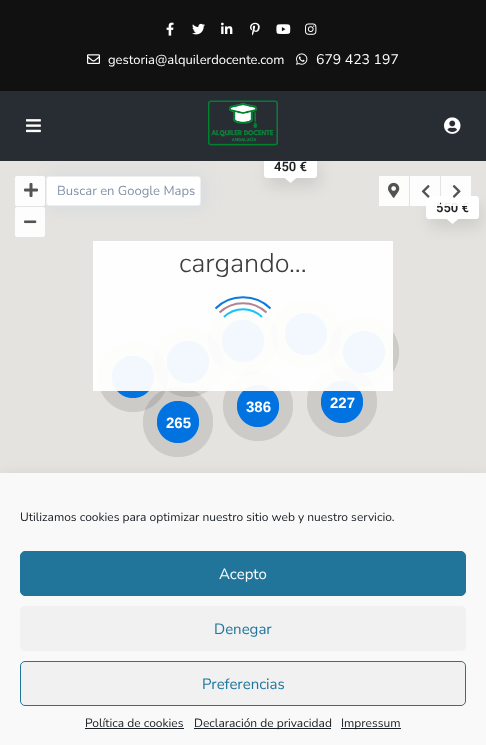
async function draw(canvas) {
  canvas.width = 486
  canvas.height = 745
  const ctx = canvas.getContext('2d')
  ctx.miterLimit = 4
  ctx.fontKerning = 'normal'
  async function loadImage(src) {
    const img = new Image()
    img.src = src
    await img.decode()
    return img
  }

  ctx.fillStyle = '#e5e3df'
  ctx.fillRect(0, 0, 486, 745)
  ctx.fillStyle = '#111'
  ctx.fillRect(0, 0, 486, 91)
  ctx.drawImage(await loadImage('image0.png'), 166, 22, 8, 14)
  ctx.drawImage(await loadImage('image1.png'), 192, 23, 13, 12)
  ctx.drawImage(await loadImage('image2.png'), 221, 22, 12, 12)
  ctx.drawImage(await loadImage('image3.png'), 250, 22, 10, 14)
  ctx.drawImage(await loadImage('image4.png'), 276, 24, 15, 10)
  ctx.drawImage(await loadImage('image5.png'), 305, 23, 12, 12)
  ctx.drawImage(await loadImage('image6.png'), 87, 54, 13, 10)
  ctx.font = '13px Nunito Sans'
  ctx.fillStyle = '#fff'
  ctx.fillText('gestoria@alquilerdocente.com', 108, 64)
  ctx.drawImage(await loadImage('image7.png'), 296, 53, 12, 12)
  ctx.font = '14px Nunito Sans'
  ctx.fillText('679 423 197', 316, 64)
  ctx.fillStyle = '#006ee114'
  ctx.filter = 'blur(10px)'
  ctx.beginPath()
  ctx.roundRect(49, 177, 155, 30, 3)
  ctx.fill()
  ctx.filter = 'none'
  ctx.fillStyle = '#0000001a'
  ctx.filter = 'blur(7.5px)'
  ctx.beginPath()
  ctx.roundRect(268, 165, 51, 21, 2)
  ctx.fill()
  ctx.filter = 'none'
  ctx.fillStyle = '#282d33'
  ctx.fillRect(0, 91, 486, 70)
  ctx.drawImage(await loadImage('image8.png'), 26, 119, 15, 14)
  ctx.drawImage(await loadImage('image9.png'), 208, 100, 70, 46)
  ctx.drawImage(await loadImage('image10.png'), 444, 117, 17, 17)
  ctx.fillStyle = '#ffffffeb'
  ctx.beginPath()
  ctx.roundRect(15, 176, 30, 30, 2)
  ctx.fill()
  ctx.drawImage(await loadImage('image11.png'), 24, 183, 14, 14)
  ctx.fillStyle = '#fff'
  ctx.beginPath()
  ctx.roundRect(46.5, 176.5, 154, 29, 2.5)
  ctx.fill()
  ctx.strokeStyle = '#eee'
  ctx.stroke()
  ctx.font = '13px Nunito Sans'
  ctx.fillStyle = '#8593a9'
  ctx.fillText('Buscar en Google Maps', 57, 195)
  ctx.fillStyle = '#0000001a'
  ctx.filter = 'blur(7.5px)'
  ctx.beginPath()
  ctx.roundRect(430, 206, 51, 21, 2)
  ctx.fill()
  ctx.filter = 'none'
  ctx.fillStyle = '#fdfdfc'
  ctx.fillRect(379, 176, 30, 30)
  ctx.drawImage(await loadImage('image12.png'), 388, 182, 12, 16)
  ctx.fillStyle = '#fff'
  ctx.beginPath()
  ctx.roundRect(426, 196, 53, 23, 3)
  ctx.fill()
  ctx.font = '600 13px Roboto'
  ctx.fillStyle = '#222'
  ctx.fillText('550 €', 436, 212)
  ctx.fillStyle = '#ffffffeb'
  ctx.fillRect(410, 176, 30, 30)
  ctx.drawImage(await loadImage('image13.png'), 421, 185, 9, 13)
  ctx.fillRect(441, 176, 30, 30)
  ctx.drawImage(await loadImage('image14.png'), 452, 185, 9, 13)
  ctx.beginPath()
  ctx.roundRect(15, 207, 30, 30, 2)
  ctx.fill()
  ctx.drawImage(await loadImage('image15.png'), 24, 220, 13, 4)
  ctx.fillStyle = '#fff'
  ctx.beginPath()
  ctx.roundRect(264, 161, 53, 17, [0, 0, 3, 3])
  ctx.fill()
  ctx.fillStyle = '#222'
  ctx.fillText('450 €', 274, 171)
  ctx.fillStyle = '#fff'
  ctx.beginPath()
  ctx.moveTo(283.5, 177)
  ctx.lineTo(297.5, 177)
  ctx.lineTo(290.5, 183)
  ctx.closePath()
  ctx.fill()
  ctx.beginPath()
  ctx.moveTo(445.5, 218)
  ctx.lineTo(459.5, 218)
  ctx.lineTo(452.5, 224)
  ctx.closePath()
  ctx.fill()
  ctx.drawImage(await loadImage('image21.png'), 223, 371, 70, 70)
  ctx.drawImage(await loadImage('image18.png'), 208, 306, 70, 70)
  ctx.drawImage(await loadImage('image21.png'), 143, 387, 70, 70)
  ctx.drawImage(await loadImage('image17.png'), 153, 327, 70, 70)
  ctx.drawImage(await loadImage('image16.png'), 98, 342, 70, 70)
  ctx.drawImage(await loadImage('image21.png'), 307, 367, 70, 70)
  ctx.drawImage(await loadImage('image19.png'), 271, 299, 70, 70)
  ctx.drawImage(await loadImage('image20.png'), 329, 317, 70, 70)
  ctx.font = 'bold 15px Liberation Sans'
  ctx.fillText('386', 246, 412)
  ctx.fillText('227', 330, 408)
  ctx.fillText('265', 166, 428)
  ctx.fillStyle = '#fffffff2'
  ctx.fillRect(93, 241, 300, 150)
  ctx.font = '300 27px Nunito Sans'
  ctx.fillStyle = '#3c3c3c'
  ctx.fillText('cargando...', 179, 272)
  ctx.beginPath()
  ctx.moveTo(215.5, 308.5)
  ctx.bezierCurveTo(230.5, 293.5, 255.5, 293.5, 270.5, 308.5)
  ctx.strokeStyle = '#0b79e1'
  ctx.lineWidth = 2
  ctx.stroke()
  ctx.beginPath()
  ctx.moveTo(219.5, 312.5)
  ctx.bezierCurveTo(232.5, 300, 253.5, 300, 266.5, 312.5)
  ctx.strokeStyle = '#b38290'
  ctx.stroke()
  ctx.beginPath()
  ctx.moveTo(224, 317)
  ctx.bezierCurveTo(234.5, 306.5, 251.5, 306.5, 262, 317)
  ctx.strokeStyle = '#17c3f6'
  ctx.stroke()
  ctx.fillStyle = '#00000030'
  ctx.filter = 'blur(10px)'
  ctx.beginPath()
  ctx.rect(0, 483, 486, 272)
  ctx.fill()
  ctx.filter = 'none'
  ctx.fillStyle = '#f9f9f9'
  ctx.fillRect(0, 473, 486, 272)
  ctx.font = '12px Nunito Sans'
  ctx.fillStyle = '#191e23'
  ctx.fillText('Utilizamos cookies para optimizar nuestro sitio web y nuestro servicio.', 20, 521)
  ctx.fillStyle = '#21759b'
  ctx.beginPath()
  ctx.roundRect(20.5, 551.5, 445, 44, 4.5)
  ctx.fill()
  ctx.strokeStyle = '#21759b'
  ctx.lineWidth = 1
  ctx.stroke()
  ctx.font = '15px Nunito Sans'
  ctx.fillStyle = '#fff'
  ctx.fillText('Acepto', 219, 579)
  ctx.fillStyle = '#f1f1f1'
  ctx.beginPath()
  ctx.roundRect(20, 606, 446, 45, 5)
  ctx.fill()
  ctx.fillStyle = '#21759b'
  ctx.fillText('Denegar', 214, 634)
  ctx.fillStyle = '#f1f1f1'
  ctx.beginPath()
  ctx.roundRect(20.5, 661.5, 445, 44, 4.5)
  ctx.fill()
  ctx.stroke()
  ctx.fillStyle = '#21759b'
  ctx.fillText('Preferencias', 202, 689)
  ctx.font = '12px Nunito Sans'
  ctx.fillStyle = '#191e23'
  ctx.fillText('Política de cookies', 85, 727)
  ctx.fillRect(85, 728, 99, 1)
  ctx.fillRect(194, 728, 137, 1)
  ctx.fillText('Declaración de privacidad', 194, 727)
  ctx.fillRect(341, 728, 60, 1)
  ctx.fillText('Impressum', 341, 727)
}

draw(document.querySelector('canvas'))
